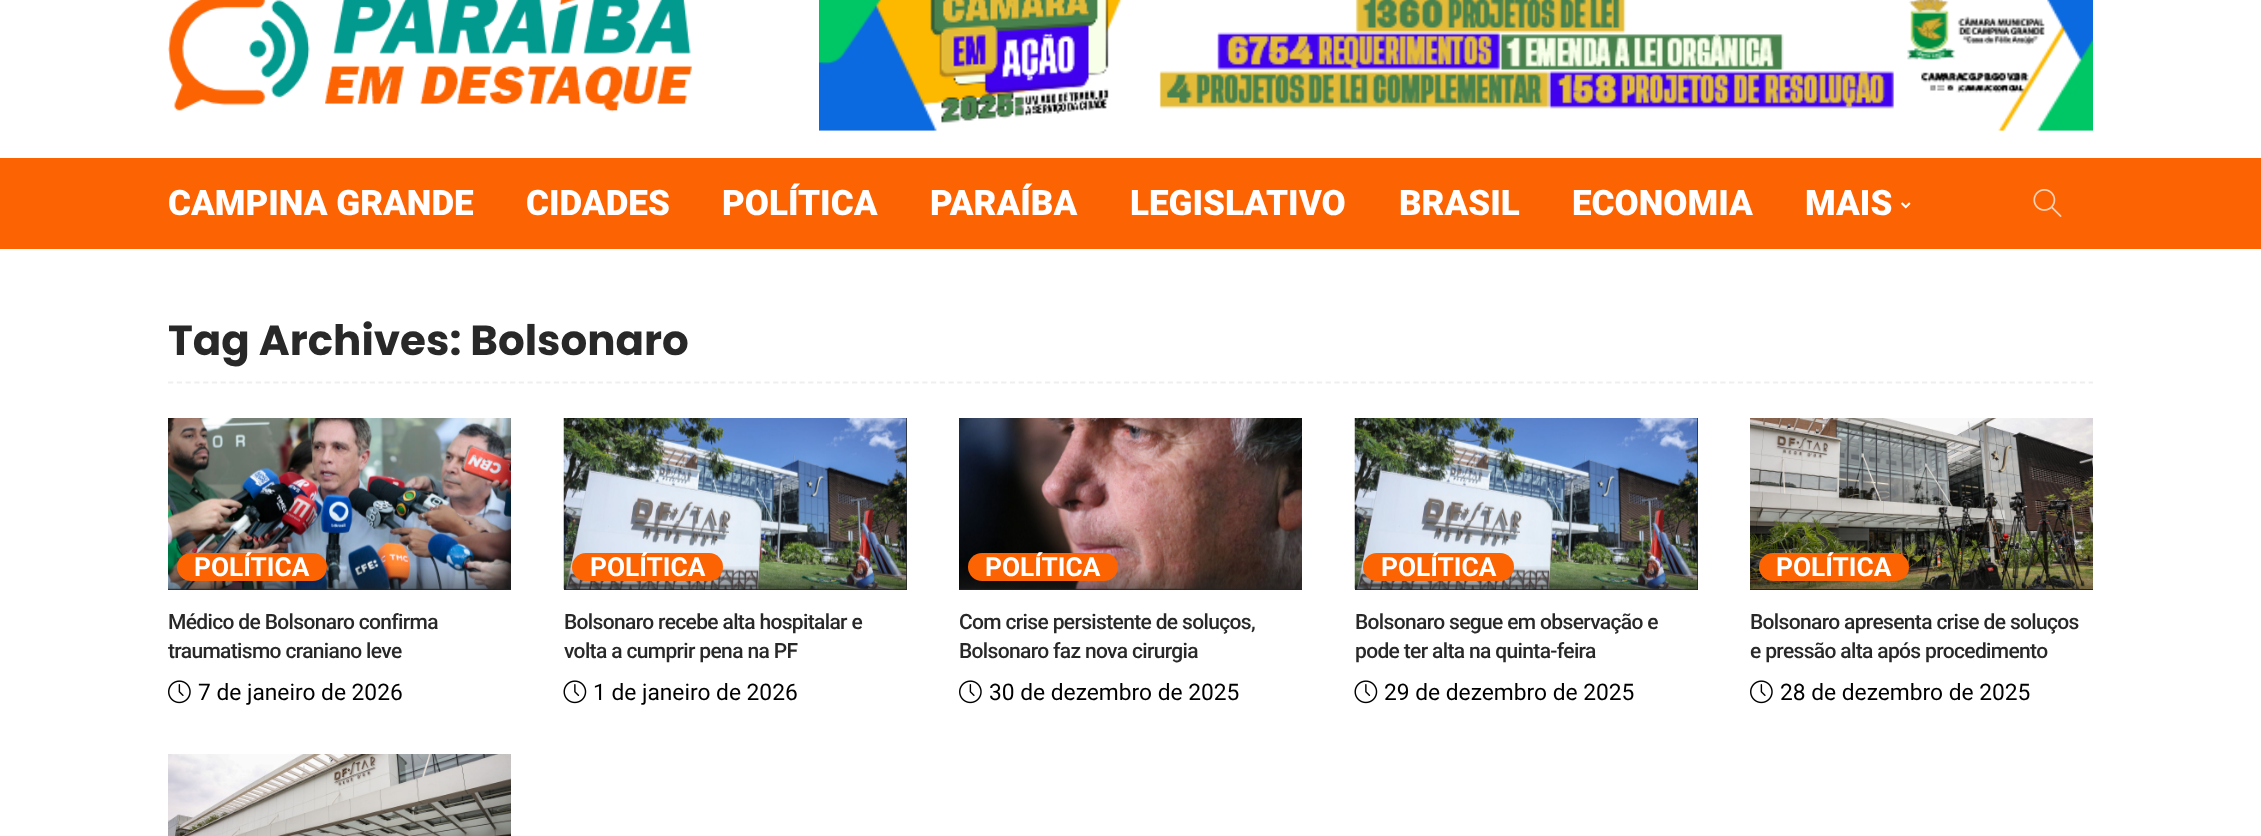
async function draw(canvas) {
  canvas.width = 2261
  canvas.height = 836
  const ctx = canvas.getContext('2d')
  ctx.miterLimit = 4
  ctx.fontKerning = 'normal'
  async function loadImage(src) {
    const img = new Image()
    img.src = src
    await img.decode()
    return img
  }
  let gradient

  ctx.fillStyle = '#fff'
  ctx.fillRect(0, 0, 2261, 836)
  ctx.drawImage(await loadImage('image0.png'), 168, 0, 524, 112)
  ctx.drawImage(await loadImage('image1.png'), 819, 0, 1274, 131)
  ctx.fillStyle = '#fc6302'
  ctx.fillRect(0, 158, 2261, 91)
  ctx.font = '900 35px Roboto'
  ctx.fillStyle = '#fff'
  ctx.fillText('CAMPINA GRANDE', 168, 215)
  ctx.fillText('CIDADES', 526, 215)
  ctx.fillText('POLÍTICA', 722, 215)
  ctx.fillText('PARAÍBA', 930, 215)
  ctx.fillText('LEGISLATIVO', 1130, 215)
  ctx.fillText('BRASIL', 1399, 215)
  ctx.fillText('ECONOMIA', 1572, 215)
  ctx.fillText('MAIS', 1805, 215)
  ctx.drawImage(await loadImage('image2.png'), 1901, 202, 10, 7)
  ctx.drawImage(await loadImage('image3.png'), 2033, 189, 29, 28)
  ctx.beginPath()
  ctx.moveTo(168, 382.5)
  ctx.lineTo(2093, 382.5)
  ctx.strokeStyle = '#efefef'
  ctx.lineWidth = 1.8
  ctx.setLineDash([5.25, 3.52])
  ctx.stroke()
  ctx.font = 'bold 42px Poppins'
  ctx.fillStyle = '#282828'
  ctx.fillText('Tag Archives: Bolsonaro', 168, 355)
  ctx.fillRect(168, 588, 343, 2)
  ctx.drawImage(await loadImage('image4.png'), 168, 418, 343, 172)
  gradient = ctx.createLinearGradient(340, 565, 340, 592)
  gradient.addColorStop(0, '#22222200')
  gradient.addColorStop(0.3, '#2222222b')
  gradient.addColorStop(1, '#2222228f')
  ctx.fillStyle = gradient
  ctx.fillRect(168, 566, 343, 24)
  ctx.fillStyle = '#fc6302'
  ctx.beginPath()
  ctx.roundRect(177, 553, 150, 28, 14)
  ctx.fill()
  ctx.font = 'bold 26.25px Roboto'
  ctx.fillStyle = '#fff'
  ctx.fillText('POLÍTICA', 194, 576)
  ctx.letterSpacing = '-0.65px'
  ctx.font = '500 21px Roboto'
  ctx.fillStyle = '#282828'
  ctx.fillText('Médico de Bolsonaro confirma', 168, 629)
  ctx.fillText('traumatismo craniano leve', 168, 658)
  ctx.drawImage(await loadImage('image5.png'), 168, 680, 23, 24)
  ctx.letterSpacing = '0px'
  ctx.font = '22.75px Roboto'
  ctx.fillStyle = '#000'
  ctx.fillText('7 de janeiro de 2026', 198, 700)
  ctx.fillStyle = '#282828'
  ctx.fillRect(564, 418, 343, 172)
  ctx.drawImage(await loadImage('image6.png'), 563, 418, 344, 172)
  gradient = ctx.createLinearGradient(735, 565, 735, 592)
  gradient.addColorStop(0, '#22222200')
  gradient.addColorStop(0.3, '#2222222b')
  gradient.addColorStop(1, '#2222228f')
  ctx.fillStyle = gradient
  ctx.fillRect(564, 566, 343, 24)
  ctx.fillStyle = '#fc6302'
  ctx.beginPath()
  ctx.roundRect(572, 553, 151, 28, 14)
  ctx.fill()
  ctx.font = 'bold 26.25px Roboto'
  ctx.fillStyle = '#fff'
  ctx.fillText('POLÍTICA', 590, 576)
  ctx.letterSpacing = '-0.65px'
  ctx.font = '500 21px Roboto'
  ctx.fillStyle = '#282828'
  ctx.fillText('Bolsonaro recebe alta hospitalar e', 564, 629)
  ctx.fillText('volta a cumprir pena na PF', 564, 658)
  ctx.drawImage(await loadImage('image7.png'), 563, 680, 24, 24)
  ctx.letterSpacing = '0px'
  ctx.font = '22.75px Roboto'
  ctx.fillStyle = '#000'
  ctx.fillText('1 de janeiro de 2026', 593, 700)
  ctx.fillStyle = '#282828'
  ctx.fillRect(959, 588, 343, 2)
  ctx.drawImage(await loadImage('image8.png'), 959, 418, 343, 172)
  gradient = ctx.createLinearGradient(1131, 565, 1131, 592)
  gradient.addColorStop(0, '#22222200')
  gradient.addColorStop(0.3, '#2222222b')
  gradient.addColorStop(1, '#2222228f')
  ctx.fillStyle = gradient
  ctx.fillRect(959, 566, 343, 24)
  ctx.fillStyle = '#fc6302'
  ctx.beginPath()
  ctx.roundRect(968, 553, 150, 28, 14)
  ctx.fill()
  ctx.font = 'bold 26.25px Roboto'
  ctx.fillStyle = '#fff'
  ctx.fillText('POLÍTICA', 985, 576)
  ctx.letterSpacing = '-0.65px'
  ctx.font = '500 21px Roboto'
  ctx.fillStyle = '#282828'
  ctx.fillText('Com crise persistente de soluços,', 959, 629)
  ctx.fillText('Bolsonaro faz nova cirurgia', 959, 658)
  ctx.drawImage(await loadImage('image5.png'), 959, 680, 23, 24)
  ctx.letterSpacing = '0px'
  ctx.font = '22.75px Roboto'
  ctx.fillStyle = '#000'
  ctx.fillText('30 de dezembro de 2025', 989, 700)
  ctx.fillStyle = '#282828'
  ctx.fillRect(1355, 418, 343, 172)
  ctx.drawImage(await loadImage('image6.png'), 1354, 418, 344, 172)
  gradient = ctx.createLinearGradient(1526, 565, 1526, 592)
  gradient.addColorStop(0, '#22222200')
  gradient.addColorStop(0.3, '#2222222b')
  gradient.addColorStop(1, '#2222228f')
  ctx.fillStyle = gradient
  ctx.fillRect(1355, 566, 343, 24)
  ctx.fillStyle = '#fc6302'
  ctx.beginPath()
  ctx.roundRect(1363, 553, 151, 28, 14)
  ctx.fill()
  ctx.font = 'bold 26.25px Roboto'
  ctx.fillStyle = '#fff'
  ctx.fillText('POLÍTICA', 1381, 576)
  ctx.letterSpacing = '-0.65px'
  ctx.font = '500 21px Roboto'
  ctx.fillStyle = '#282828'
  ctx.fillText('Bolsonaro segue em observação e', 1355, 629)
  ctx.fillText('pode ter alta na quinta-feira', 1355, 658)
  ctx.drawImage(await loadImage('image7.png'), 1354, 680, 24, 24)
  ctx.letterSpacing = '0px'
  ctx.font = '22.75px Roboto'
  ctx.fillStyle = '#000'
  ctx.fillText('29 de dezembro de 2025', 1384, 700)
  ctx.fillStyle = '#282828'
  ctx.fillRect(1750, 589, 343, 1)
  ctx.drawImage(await loadImage('image9.png'), 1750, 418, 343, 171)
  gradient = ctx.createLinearGradient(1922, 565, 1922, 592)
  gradient.addColorStop(0, '#22222200')
  gradient.addColorStop(0.3, '#2222222b')
  gradient.addColorStop(1, '#2222228f')
  ctx.fillStyle = gradient
  ctx.fillRect(1750, 566, 343, 24)
  ctx.fillStyle = '#fc6302'
  ctx.beginPath()
  ctx.roundRect(1759, 553, 150, 28, 14)
  ctx.fill()
  ctx.font = 'bold 26.25px Roboto'
  ctx.fillStyle = '#fff'
  ctx.fillText('POLÍTICA', 1776, 576)
  ctx.letterSpacing = '-0.65px'
  ctx.font = '500 21px Roboto'
  ctx.fillStyle = '#282828'
  ctx.fillText('Bolsonaro apresenta crise de soluços', 1750, 629)
  ctx.fillText('e pressão alta após procedimento', 1750, 658)
  ctx.drawImage(await loadImage('image5.png'), 1750, 680, 23, 24)
  ctx.letterSpacing = '0px'
  ctx.font = '22.75px Roboto'
  ctx.fillStyle = '#000'
  ctx.fillText('28 de dezembro de 2025', 1780, 700)
  ctx.drawImage(await loadImage('image10.png'), 168, 754, 343, 82)
}

draw(document.querySelector('canvas'))
